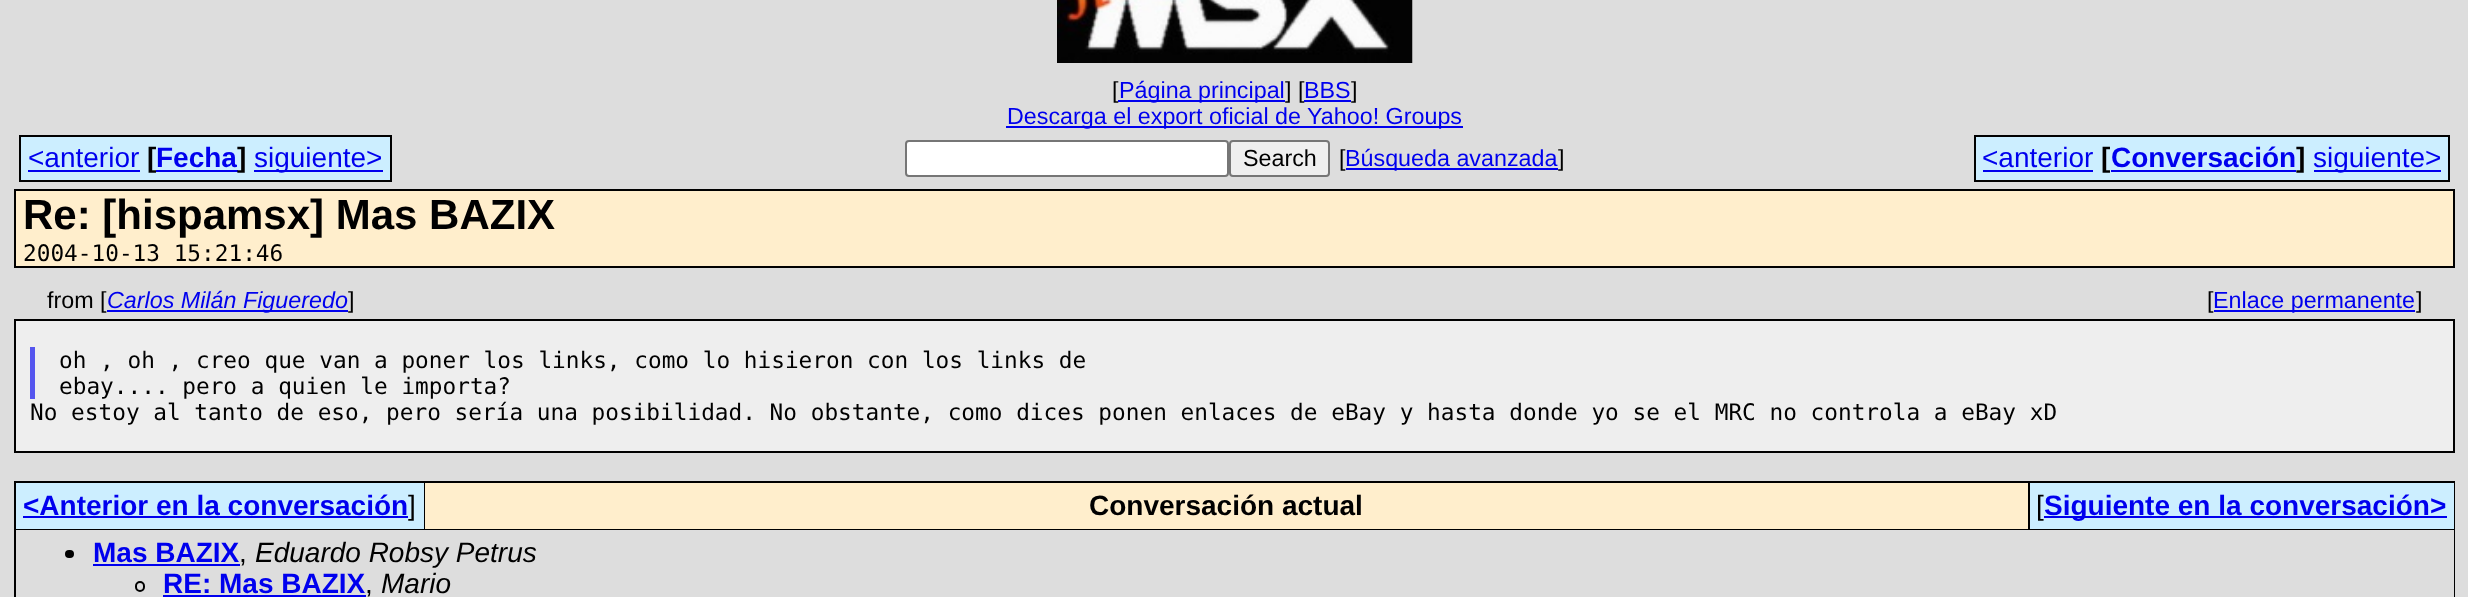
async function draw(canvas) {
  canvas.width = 2468
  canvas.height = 597
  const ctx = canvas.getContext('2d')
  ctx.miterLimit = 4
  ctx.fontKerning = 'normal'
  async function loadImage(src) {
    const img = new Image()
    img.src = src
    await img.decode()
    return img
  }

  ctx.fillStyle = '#ddd'
  ctx.fillRect(0, 0, 2468, 597)
  ctx.drawImage(await loadImage('image0.png'), 1057, 0, 356, 63)
  ctx.font = '23.3px Liberation Sans'
  ctx.fillStyle = '#000'
  ctx.fillText('[', 1112, 98)
  ctx.fillStyle = '#00e'
  ctx.fillRect(1118, 100, 167, 2)
  ctx.fillText('Página principal', 1119, 98)
  ctx.fillStyle = '#000'
  ctx.fillText('] [', 1285, 98)
  ctx.fillStyle = '#00e'
  ctx.fillText('BBS', 1304, 98)
  ctx.fillRect(1304, 100, 47, 2)
  ctx.fillStyle = '#000'
  ctx.fillText(']', 1351, 98)
  ctx.fillStyle = '#00e'
  ctx.fillRect(1006, 126, 457, 2)
  ctx.fillText('Descarga el export oficial de Yahoo! Groups', 1007, 124)
  ctx.fillStyle = '#cef'
  ctx.fillRect(21, 137, 119, 43)
  ctx.font = '28px Liberation Sans'
  ctx.fillStyle = '#00e'
  ctx.fillText('<anterior', 28, 167)
  ctx.fillStyle = '#000'
  ctx.fillRect(19, 135, 121, 2)
  ctx.fillRect(19, 180, 121, 2)
  ctx.fillRect(19, 135, 2, 47)
  ctx.fillStyle = '#00e'
  ctx.fillRect(28, 170, 112, 2)
  ctx.fillStyle = '#cef'
  ctx.fillRect(147, 137, 100, 43)
  ctx.font = 'bold 28px Liberation Sans'
  ctx.fillStyle = '#000'
  ctx.fillText('[', 147, 167)
  ctx.fillStyle = '#cef'
  ctx.fillRect(140, 135, 7, 47)
  ctx.fillStyle = '#000'
  ctx.fillRect(140, 180, 107, 2)
  ctx.fillStyle = '#00e'
  ctx.fillRect(156, 170, 82, 2)
  ctx.fillText('Fecha', 156, 167)
  ctx.fillStyle = '#000'
  ctx.fillRect(140, 135, 107, 2)
  ctx.fillText(']', 237, 167)
  ctx.fillStyle = '#cef'
  ctx.fillRect(247, 135, 7, 47)
  ctx.fillStyle = '#000'
  ctx.fillRect(247, 180, 7, 2)
  ctx.fillStyle = '#cef'
  ctx.fillRect(254, 137, 136, 43)
  ctx.fillStyle = '#00e'
  ctx.fillRect(254, 170, 129, 2)
  ctx.font = '28px Liberation Sans'
  ctx.fillText('siguiente>', 254, 167)
  ctx.fillStyle = '#000'
  ctx.fillRect(247, 135, 145, 2)
  ctx.fillRect(390, 135, 2, 47)
  ctx.fillRect(254, 180, 138, 2)
  ctx.fillStyle = '#fff'
  ctx.beginPath()
  ctx.roundRect(906, 141, 322, 35, 3)
  ctx.fill()
  ctx.strokeStyle = '#767676'
  ctx.lineWidth = 2
  ctx.stroke()
  ctx.fillStyle = '#efefef'
  ctx.beginPath()
  ctx.roundRect(1230, 141, 99, 35, 3)
  ctx.fill()
  ctx.stroke()
  ctx.font = '23.3px Liberation Sans'
  ctx.fillStyle = '#000'
  ctx.fillText('Search', 1243, 166)
  ctx.fillText('[', 1339, 166)
  ctx.fillStyle = '#00e'
  ctx.fillRect(1346, 168, 212, 2)
  ctx.fillText('Búsqueda avanzada', 1345, 166)
  ctx.fillStyle = '#000'
  ctx.fillText(']', 1558, 166)
  ctx.fillStyle = '#cef'
  ctx.fillRect(1976, 137, 472, 43)
  ctx.font = '28px Liberation Sans'
  ctx.fillStyle = '#00e'
  ctx.fillText('<anterior', 1982, 167)
  ctx.fillStyle = '#000'
  ctx.fillRect(1974, 135, 476, 2)
  ctx.fillRect(1974, 180, 340, 2)
  ctx.fillRect(1974, 135, 2, 47)
  ctx.fillStyle = '#00e'
  ctx.fillRect(1983, 170, 110, 2)
  ctx.font = 'bold 28px Liberation Sans'
  ctx.fillStyle = '#000'
  ctx.fillText('[', 2101, 167)
  ctx.fillStyle = '#00e'
  ctx.fillRect(2111, 170, 185, 2)
  ctx.fillText('Conversación', 2111, 167)
  ctx.fillStyle = '#000'
  ctx.fillText(']', 2296, 167)
  ctx.fillStyle = '#00e'
  ctx.fillRect(2314, 170, 127, 2)
  ctx.font = '28px Liberation Sans'
  ctx.fillText('siguiente>', 2313, 167)
  ctx.fillStyle = '#000'
  ctx.fillRect(2448, 135, 2, 47)
  ctx.fillRect(2314, 180, 136, 2)
  ctx.fillStyle = '#fec'
  ctx.beginPath()
  ctx.rect(15, 190, 2439, 77)
  ctx.fill()
  ctx.strokeStyle = '#000'
  ctx.stroke()
  ctx.font = 'bold 42px Liberation Sans'
  ctx.fillStyle = '#000'
  ctx.fillText('Re: [hispamsx] Mas BAZIX', 23, 229)
  ctx.font = '22.75px DejaVu Sans Mono'
  ctx.fillText('2004-10-13 15:21:46', 23, 261)
  ctx.font = '23.3px Liberation Sans'
  ctx.fillText('from [', 47, 308)
  ctx.fillStyle = '#00e'
  ctx.fillRect(107, 310, 241, 2)
  ctx.font = 'italic 23.3px Liberation Sans'
  ctx.fillText('Carlos Milán Figueredo', 107, 308)
  ctx.font = '23.3px Liberation Sans'
  ctx.fillStyle = '#000'
  ctx.fillText(']', 348, 308)
  ctx.fillText('[', 2207, 308)
  ctx.fillStyle = '#00e'
  ctx.fillRect(2214, 310, 201, 2)
  ctx.fillText('Enlace permanente', 2213, 308)
  ctx.fillStyle = '#000'
  ctx.fillText(']', 2416, 308)
  ctx.fillStyle = '#eee'
  ctx.beginPath()
  ctx.rect(15, 320, 2439, 132)
  ctx.fill()
  ctx.stroke()
  ctx.fillStyle = '#55e'
  ctx.fillRect(30, 347, 5, 52)
  ctx.font = '22.75px DejaVu Sans Mono'
  ctx.fillStyle = '#000'
  ctx.fillText('oh , oh , creo que van a poner los links, como lo hisieron con los links de', 59, 368)
  ctx.fillText('ebay.... pero a quien le importa?', 59, 394)
  ctx.fillText('No estoy al tanto de eso, pero sería una posibilidad. No obstante, como dices ponen enlaces de eBay y hasta donde yo se el MRC no controla a eBay xD', 30, 420)
  ctx.fillRect(14, 481, 2441, 116)
  ctx.fillStyle = '#cef'
  ctx.fillRect(16, 483, 408, 46)
  ctx.font = 'bold 28px Liberation Sans'
  ctx.fillStyle = '#00e'
  ctx.fillText('<Anterior en la conversación', 23, 515)
  ctx.fillRect(23, 516, 385, 2)
  ctx.font = '28px Liberation Sans'
  ctx.fillStyle = '#000'
  ctx.fillText(']', 408, 515)
  ctx.fillStyle = '#fec'
  ctx.fillRect(425, 483, 1603, 46)
  ctx.font = 'bold 28px Liberation Sans'
  ctx.fillStyle = '#000'
  ctx.fillText('Conversación actual', 1089, 515)
  ctx.fillStyle = '#cef'
  ctx.fillRect(2030, 483, 424, 46)
  ctx.font = '28px Liberation Sans'
  ctx.fillStyle = '#000'
  ctx.fillText('[', 2036, 515)
  ctx.fillStyle = '#00e'
  ctx.fillRect(2044, 516, 403, 2)
  ctx.font = 'bold 28px Liberation Sans'
  ctx.fillText('Siguiente en la conversación>', 2044, 515)
  ctx.fillStyle = '#ddd'
  ctx.fillRect(16, 530, 2438, 67)
  ctx.fillStyle = '#000'
  ctx.beginPath()
  ctx.roundRect(65, 550, 9, 8, 4)
  ctx.fill()
  ctx.fillStyle = '#00e'
  ctx.fillText('Mas BAZIX', 93, 562)
  ctx.fillRect(93, 564, 147, 2)
  ctx.font = 'italic 28px Liberation Sans'
  ctx.fillStyle = '#000'
  ctx.fillText('Eduardo Robsy Petrus', 255, 562)
  ctx.font = '28px Liberation Sans'
  ctx.fillText(',', 239, 562)
  ctx.beginPath()
  ctx.roundRect(136, 582, 8, 9, 4)
  ctx.stroke()
  ctx.font = 'bold 28px Liberation Sans'
  ctx.fillStyle = '#00e'
  ctx.fillText('RE: Mas BAZIX', 163, 593)
  ctx.fillRect(163, 595, 203, 2)
  ctx.font = 'italic 28px Liberation Sans'
  ctx.fillStyle = '#000'
  ctx.fillText('Mario', 381, 593)
  ctx.font = '28px Liberation Sans'
  ctx.fillText(',', 365, 593)
}

draw(document.querySelector('canvas'))
